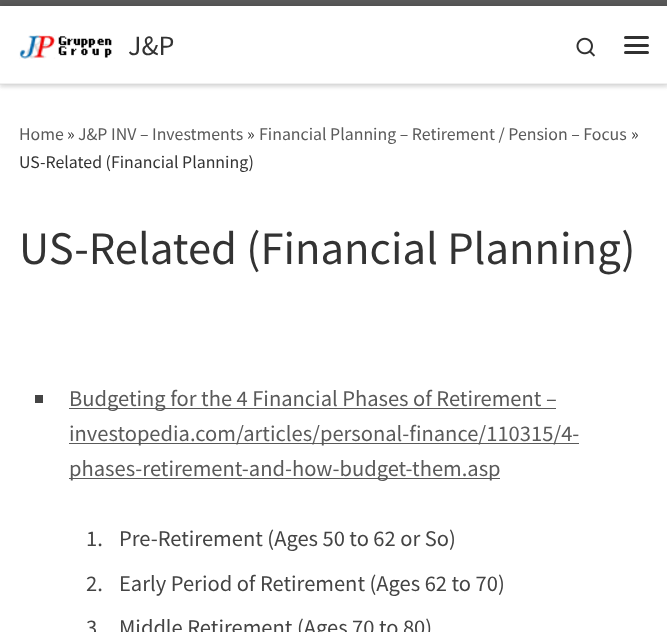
async function draw(canvas) {
  canvas.width = 667
  canvas.height = 632
  const ctx = canvas.getContext('2d')
  ctx.miterLimit = 4
  ctx.fontKerning = 'normal'
  async function loadImage(src) {
    const img = new Image()
    img.src = src
    await img.decode()
    return img
  }

  ctx.fillStyle = '#fff'
  ctx.fillRect(0, 0, 667, 632)
  ctx.fillStyle = '#66666614'
  ctx.filter = 'blur(1px)'
  ctx.beginPath()
  ctx.rect(0, 3, 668, 85)
  ctx.fill()
  ctx.filter = 'none'
  ctx.fillStyle = '#5a5a5a'
  ctx.fillRect(0, 0, 667, 6)
  ctx.fillStyle = '#efefef'
  ctx.beginPath()
  ctx.moveTo(0, 84)
  ctx.lineTo(0, 85)
  ctx.lineTo(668, 85)
  ctx.lineTo(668, 8)
  ctx.lineTo(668, 84)
  ctx.closePath()
  ctx.fill()
  ctx.fillStyle = '#00000033'
  ctx.filter = 'blur(3px)'
  ctx.beginPath()
  ctx.rect(0, 6, 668, 78)
  ctx.fill()
  ctx.filter = 'none'
  ctx.fillStyle = '#fff'
  ctx.fillRect(0, 6, 667, 77)
  ctx.drawImage(await loadImage('image0.png'), 19, 35, 93, 24)
  ctx.font = '28px Source Sans Pro'
  ctx.fillStyle = '#333'
  ctx.fillText('J&P', 128, 55)
  ctx.drawImage(await loadImage('image1.png'), 576, 37, 20, 20)
  ctx.fillStyle = '#313131'
  ctx.beginPath()
  ctx.roundRect(624, 36, 25, 3, 1.5)
  ctx.fill()
  ctx.beginPath()
  ctx.roundRect(624, 44, 25, 3, 1.5)
  ctx.fill()
  ctx.beginPath()
  ctx.roundRect(624, 51, 25, 3, 1.5)
  ctx.fill()
  ctx.fillStyle = '#f0f0f0'
  ctx.fillRect(0, 83, 667, 1)
  ctx.font = '17.8px Source Sans Pro'
  ctx.fillStyle = '#5a5a5a'
  ctx.fillText('Home', 19, 140)
  ctx.fillStyle = '#333'
  ctx.fillText('»', 67, 140)
  ctx.fillStyle = '#5a5a5a'
  ctx.fillText('J&P INV – Investments', 78, 140)
  ctx.fillStyle = '#333'
  ctx.fillText('»', 247, 140)
  ctx.fillStyle = '#5a5a5a'
  ctx.fillText('Financial Planning – Retirement / Pension – Focus', 259, 140)
  ctx.fillStyle = '#333'
  ctx.fillText('»', 631, 140)
  ctx.fillText('US-Related (Financial Planning)', 19, 168)
  ctx.font = '46.7px Source Sans Pro'
  ctx.fillText('US-Related (Financial Planning)', 19, 264)
  ctx.fillStyle = '#444'
  ctx.fillRect(35, 395, 8, 8)
  ctx.fillStyle = '#5a5a5a'
  ctx.fillRect(69, 408, 487, 1)
  ctx.font = '22.5px Source Sans Pro'
  ctx.fillText('Budgeting for the 4 Financial Phases of Retirement –', 69, 406)
  ctx.fillRect(69, 443, 510, 1)
  ctx.fillText('investopedia.com/articles/personal-finance/110315/4-', 69, 441)
  ctx.fillRect(69, 478, 431, 1)
  ctx.fillText('phases-retirement-and-how-budget-them.asp', 69, 476)
  ctx.fillStyle = '#444'
  ctx.fillText('1.', 86, 546)
  ctx.fillText('Pre-Retirement (Ages 50 to 62 or So)', 119, 546)
  ctx.fillText('2.', 86, 591)
  ctx.fillText('Early Period of Retirement (Ages 62 to 70)', 119, 591)
  ctx.fillText('3', 86, 635)
  ctx.fillText('Middle Retirement (Ages 70 to 80)', 119, 635)
}

draw(document.querySelector('canvas'))
